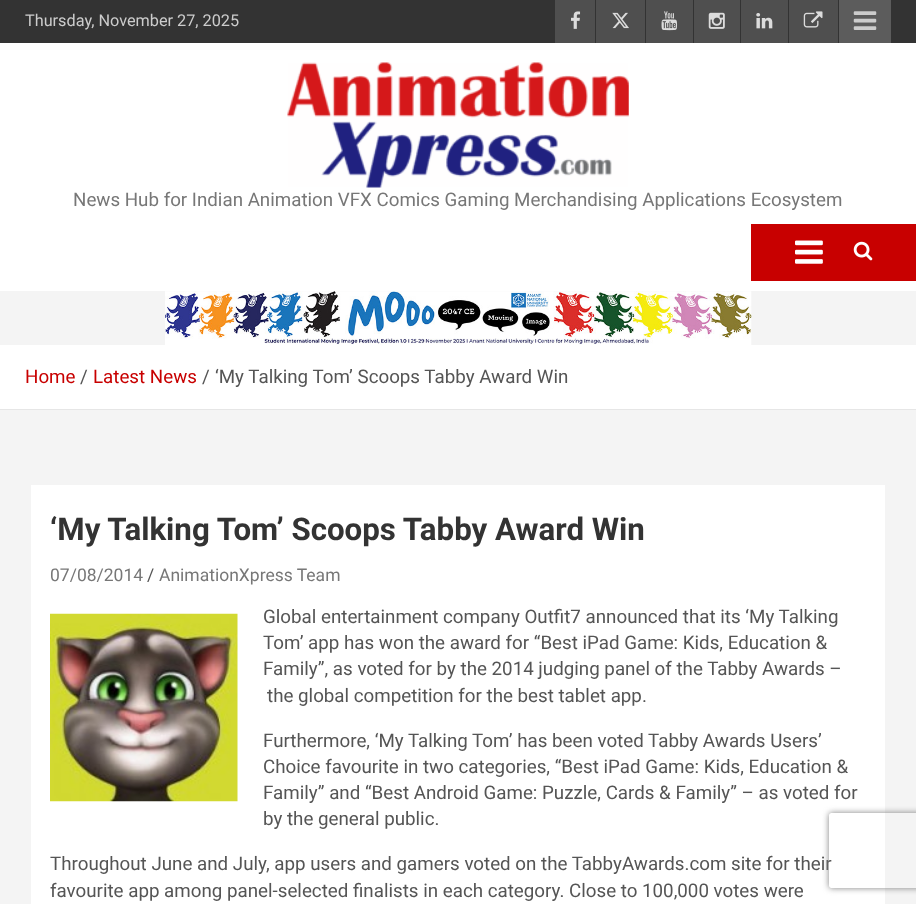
async function draw(canvas) {
  canvas.width = 916
  canvas.height = 904
  const ctx = canvas.getContext('2d')
  ctx.miterLimit = 4
  ctx.fontKerning = 'normal'
  async function loadImage(src) {
    const img = new Image()
    img.src = src
    await img.decode()
    return img
  }

  ctx.fillStyle = '#f4f4f4'
  ctx.fillRect(0, 0, 916, 904)
  ctx.fillStyle = '#333'
  ctx.fillRect(0, 0, 916, 43)
  ctx.font = '16.25px Roboto'
  ctx.fillStyle = '#ccc'
  ctx.fillText('Thursday, November 27, 2025', 25, 26)
  ctx.fillStyle = '#4f4f4f'
  ctx.fillRect(555, 0, 40, 43)
  ctx.drawImage(await loadImage('image0.png'), 571, 11, 10, 18)
  ctx.fillRect(596, 0, 49, 43)
  ctx.drawImage(await loadImage('image1.png'), 612, 12, 17, 17)
  ctx.fillRect(646, 0, 47, 43)
  ctx.drawImage(await loadImage('image2.png'), 661, 11, 17, 20)
  ctx.fillRect(694, 0, 46, 43)
  ctx.drawImage(await loadImage('image3.png'), 708, 12, 17, 17)
  ctx.fillRect(741, 0, 47, 43)
  ctx.drawImage(await loadImage('image4.png'), 756, 13, 17, 16)
  ctx.fillRect(789, 0, 49, 43)
  ctx.drawImage(await loadImage('image5.png'), 803, 11, 20, 17)
  ctx.fillStyle = '#5c5c5c'
  ctx.fillRect(839, 0, 52, 43)
  ctx.drawImage(await loadImage('image6.png'), 853, 11, 24, 19)
  ctx.fillStyle = '#fff'
  ctx.fillRect(0, 43, 916, 248)
  ctx.drawImage(await loadImage('image7.png'), 287, 62, 342, 126)
  ctx.font = '18.75px Roboto'
  ctx.fillStyle = '#777'
  ctx.fillText('News Hub for Indian Animation VFX Comics Gaming Merchandising Applications Ecosystem', 73, 206)
  ctx.fillStyle = '#c80000'
  ctx.fillRect(751, 224, 165, 57)
  ctx.drawImage(await loadImage('image8.png'), 795, 240, 28, 24)
  ctx.drawImage(await loadImage('image9.png'), 853, 241, 20, 20)
  ctx.drawImage(await loadImage('image10.png'), 165, 291, 587, 54)
  ctx.fillStyle = '#fff'
  ctx.fillRect(0, 345, 916, 64)
  ctx.fillStyle = '#e6e6e6'
  ctx.fillRect(0, 409, 916, 1)
  ctx.fillStyle = '#c80000'
  ctx.fillText('Home', 25, 383)
  ctx.fillStyle = '#555'
  ctx.fillText('/', 80, 383)
  ctx.fillStyle = '#c80000'
  ctx.fillText('Latest News', 93, 383)
  ctx.fillStyle = '#555'
  ctx.fillText('/', 202, 383)
  ctx.fillText('‘My Talking Tom’ Scoops Tabby Award Win', 215, 383)
  ctx.fillStyle = '#fff'
  ctx.fillRect(31, 485, 854, 419)
  ctx.font = 'bold 31.25px Roboto'
  ctx.fillStyle = '#333'
  ctx.fillText('‘My Talking Tom’ Scoops Tabby Award Win', 50, 540)
  ctx.font = '17.5px Roboto'
  ctx.fillStyle = '#777'
  ctx.fillText('07/08/2014', 50, 581)
  ctx.fillStyle = '#555'
  ctx.fillText('/', 147, 581)
  ctx.fillStyle = '#777'
  ctx.fillText('AnimationXpress Team', 159, 581)
  ctx.drawImage(await loadImage('image11.png'), 50, 613, 188, 189)
  ctx.font = '18.75px Roboto'
  ctx.fillStyle = '#555'
  ctx.fillText('Global entertainment company Outfit7 announced that its ‘My Talking', 263, 623)
  ctx.fillText('Tom’ app has won the award for “Best iPad Game: Kids, Education &', 263, 649)
  ctx.fillText('Family”, as voted for by the 2014 judging panel of the Tabby Awards –', 263, 675)
  ctx.fillText('the global competition for the best tablet app.', 267, 702)
  ctx.fillText('Furthermore, ‘My Talking Tom’ has been voted Tabby Awards Users’', 263, 747)
  ctx.fillText('Choice favourite in two categories, “Best iPad Game: Kids, Education &', 263, 773)
  ctx.fillText('Family” and “Best Android Game: Puzzle, Cards & Family” – as voted for', 263, 799)
  ctx.fillText('by the general public.', 263, 825)
  ctx.fillText('Throughout June and July, app users and gamers voted on the TabbyAwards.com site for their', 50, 870)
  ctx.fillText('favourite app among panel-selected finalists in each category. Close to 100,000 votes were', 50, 897)
  ctx.save()
  ctx.beginPath()
  ctx.moveTo(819, 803)
  ctx.lineTo(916, 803)
  ctx.lineTo(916, 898)
  ctx.lineTo(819, 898)
  ctx.closePath()
  ctx.moveTo(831.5, 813)
  ctx.lineTo(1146.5, 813)
  ctx.bezierCurveTo(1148, 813, 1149, 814, 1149, 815.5)
  ctx.lineTo(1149, 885.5)
  ctx.bezierCurveTo(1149, 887, 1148, 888, 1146.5, 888)
  ctx.lineTo(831.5, 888)
  ctx.bezierCurveTo(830, 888, 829, 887, 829, 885.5)
  ctx.lineTo(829, 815.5)
  ctx.bezierCurveTo(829, 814, 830, 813, 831.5, 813)
  ctx.closePath()
  ctx.clip('evenodd')
  ctx.fillStyle = '#808080'
  ctx.filter = 'blur(3px)'
  ctx.beginPath()
  ctx.roundRect(829, 813, 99, 75, 2.5)
  ctx.fill()
  ctx.filter = 'none'
  ctx.restore()
}

draw(document.querySelector('canvas'))
